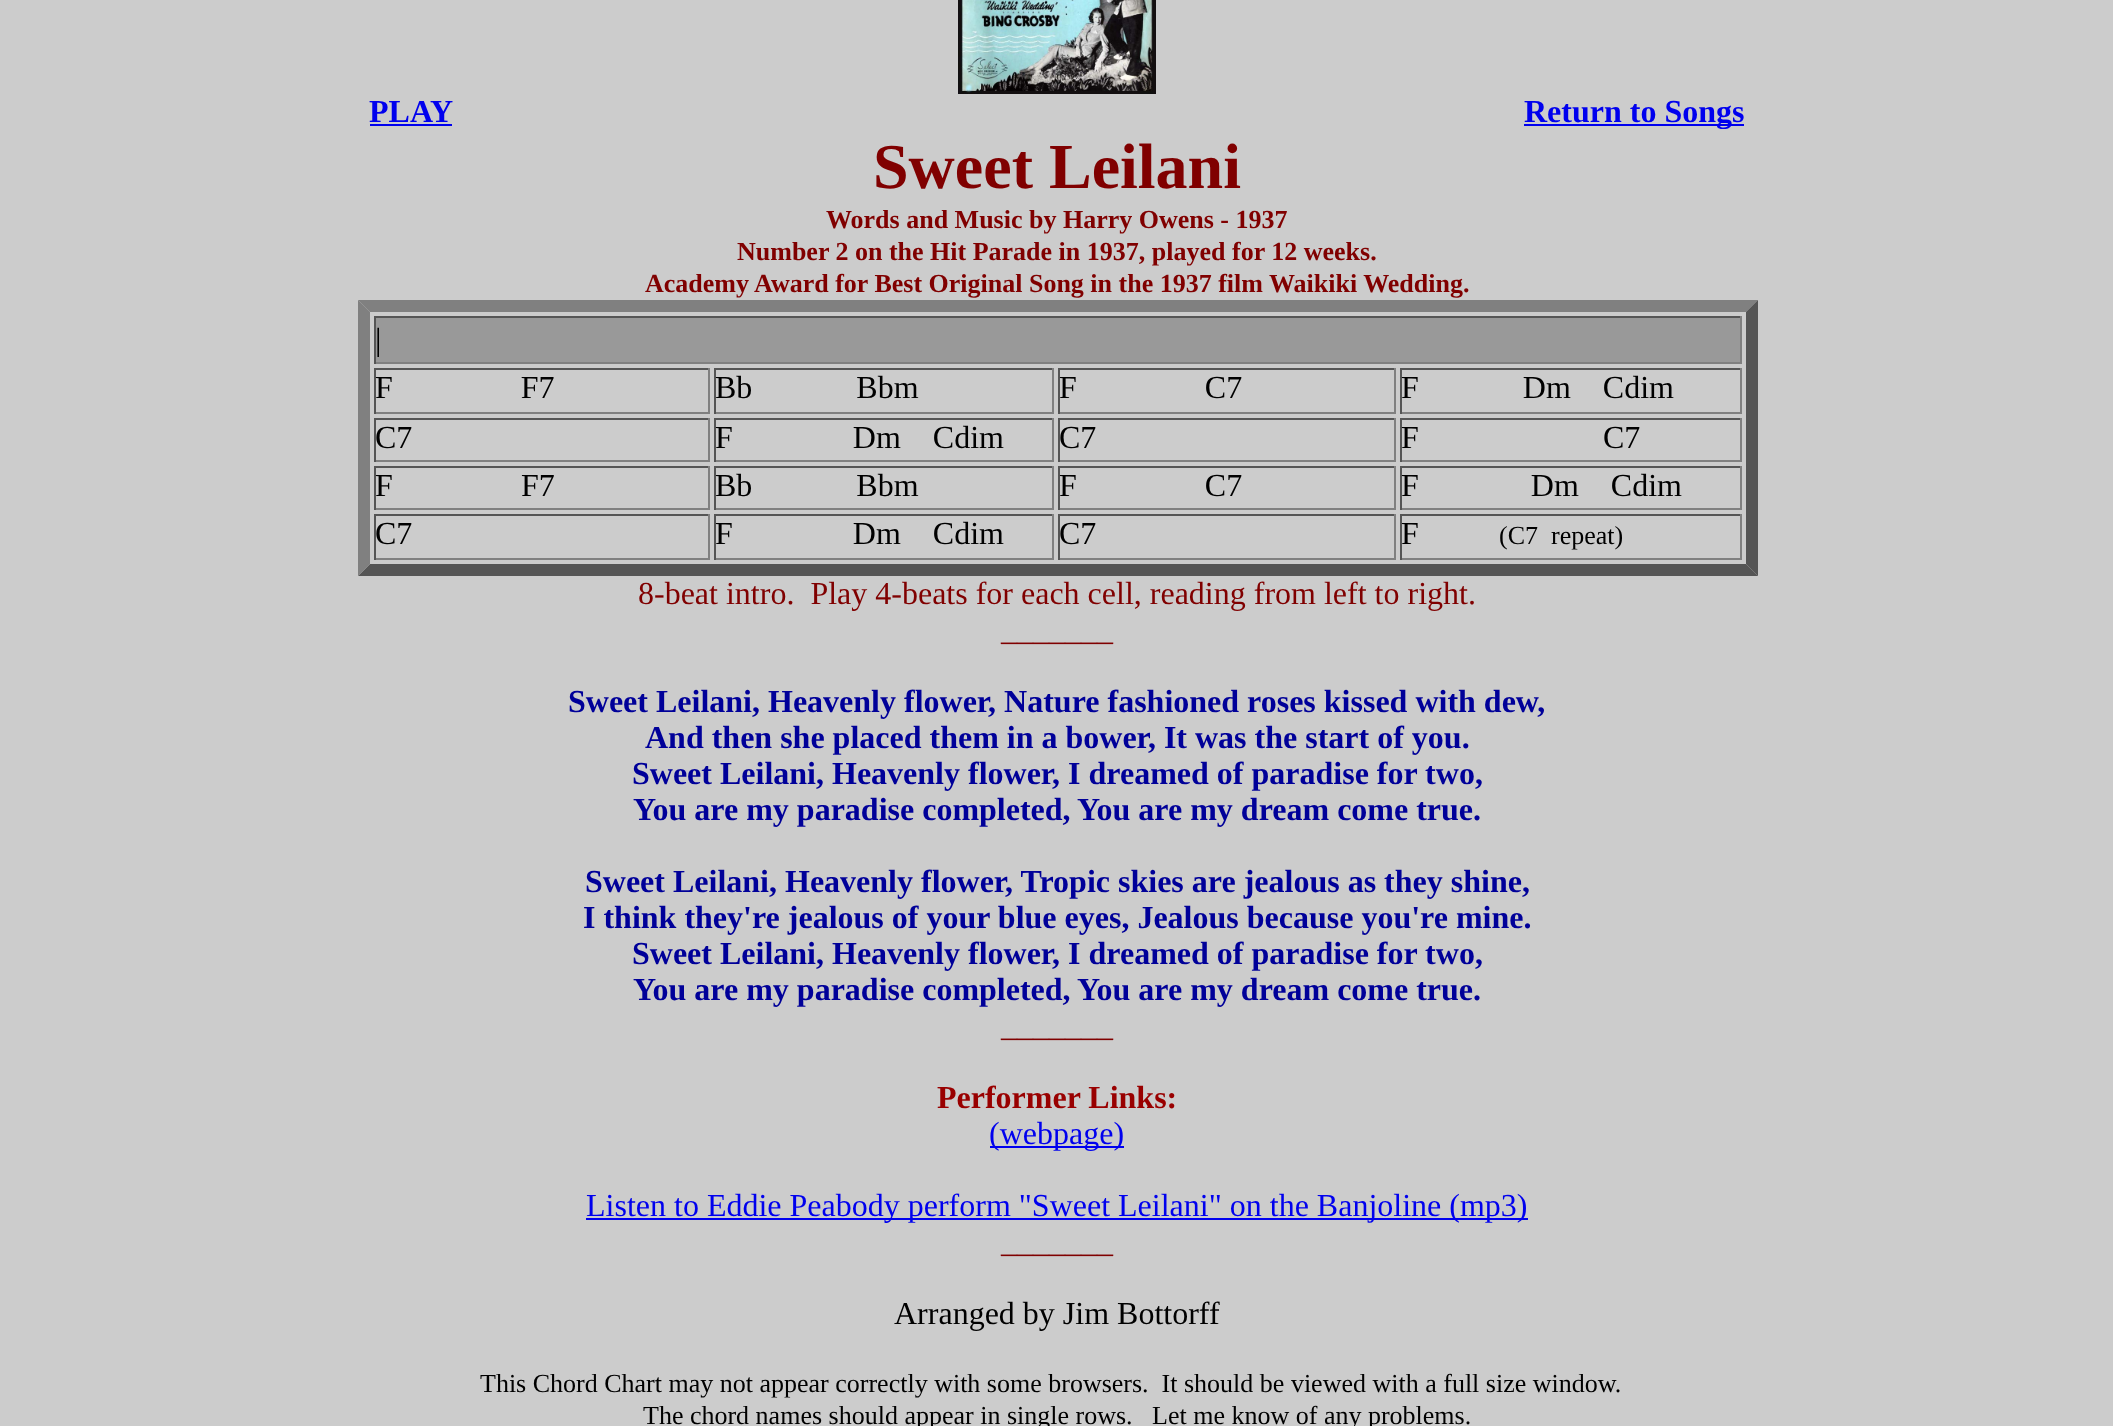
async function draw(canvas) {
  canvas.width = 2113
  canvas.height = 1426
  const ctx = canvas.getContext('2d')
  ctx.miterLimit = 4
  ctx.fontKerning = 'normal'
  async function loadImage(src) {
    const img = new Image()
    img.src = src
    await img.decode()
    return img
  }

  ctx.fillStyle = '#ccc'
  ctx.fillRect(0, 0, 2113, 1426)
  ctx.drawImage(await loadImage('image0.png'), 958, 0, 198, 94)
  ctx.font = 'bold 32px Liberation Serif'
  ctx.fillStyle = '#00e'
  ctx.fillText('PLAY', 369, 122)
  ctx.fillRect(370, 124, 82, 2)
  ctx.fillRect(1524, 124, 220, 2)
  ctx.fillText('Return to Songs', 1524, 122)
  ctx.font = 'bold 64px Liberation Serif'
  ctx.fillStyle = '#800000'
  ctx.fillText('Sweet Leilani', 873, 188)
  ctx.font = 'bold 26px Liberation Serif'
  ctx.fillText('Words and Music by Harry Owens - 1937', 826, 228)
  ctx.fillText('Number 2 on the Hit Parade in 1937, played for 12 weeks.', 737, 260)
  ctx.fillText('Academy Award for Best Original Song in the 1937 film Waikiki Wedding.', 645, 292)
  ctx.fillStyle = '#808080'
  ctx.beginPath()
  ctx.moveTo(358, 300)
  ctx.lineTo(1758, 300)
  ctx.lineTo(1746, 312)
  ctx.lineTo(370, 312)
  ctx.closePath()
  ctx.fill()
  ctx.fillStyle = '#555'
  ctx.beginPath()
  ctx.moveTo(1758, 300)
  ctx.lineTo(1758, 576)
  ctx.lineTo(1746, 564)
  ctx.lineTo(1746, 312)
  ctx.closePath()
  ctx.fill()
  ctx.beginPath()
  ctx.moveTo(1758, 576)
  ctx.lineTo(358, 576)
  ctx.lineTo(370, 564)
  ctx.lineTo(1746, 564)
  ctx.closePath()
  ctx.fill()
  ctx.fillStyle = '#808080'
  ctx.beginPath()
  ctx.moveTo(358, 576)
  ctx.lineTo(358, 300)
  ctx.lineTo(370, 312)
  ctx.lineTo(370, 564)
  ctx.closePath()
  ctx.fill()
  ctx.fillStyle = '#999'
  ctx.fillRect(376, 318, 1364, 44)
  ctx.fillStyle = '#555'
  ctx.fillRect(374, 316, 1368, 2)
  ctx.fillStyle = '#808080'
  ctx.fillRect(1740, 316, 2, 48)
  ctx.fillRect(374, 362, 1368, 2)
  ctx.fillStyle = '#555'
  ctx.fillRect(374, 316, 2, 48)
  ctx.font = '32px Liberation Serif'
  ctx.fillStyle = '#000'
  ctx.fillText('|', 375, 350)
  ctx.fillStyle = '#555'
  ctx.fillRect(374, 368, 336, 2)
  ctx.fillStyle = '#808080'
  ctx.fillRect(708, 368, 2, 46)
  ctx.fillRect(374, 412, 336, 2)
  ctx.fillStyle = '#555'
  ctx.fillRect(374, 368, 2, 46)
  ctx.fillStyle = '#000'
  ctx.fillText('F                F7', 375, 398)
  ctx.fillStyle = '#555'
  ctx.fillRect(714, 368, 340, 2)
  ctx.fillStyle = '#808080'
  ctx.fillRect(1052, 368, 2, 46)
  ctx.fillRect(714, 412, 340, 2)
  ctx.fillStyle = '#555'
  ctx.fillRect(714, 368, 2, 46)
  ctx.fillStyle = '#000'
  ctx.fillText('Bb             Bbm', 715, 398)
  ctx.fillStyle = '#555'
  ctx.fillRect(1058, 368, 338, 2)
  ctx.fillStyle = '#808080'
  ctx.fillRect(1394, 368, 2, 46)
  ctx.fillRect(1058, 412, 338, 2)
  ctx.fillStyle = '#555'
  ctx.fillRect(1058, 368, 2, 46)
  ctx.fillStyle = '#000'
  ctx.fillText('F                C7', 1059, 398)
  ctx.fillStyle = '#555'
  ctx.fillRect(1400, 368, 342, 2)
  ctx.fillStyle = '#808080'
  ctx.fillRect(1740, 368, 2, 46)
  ctx.fillRect(1400, 412, 342, 2)
  ctx.fillStyle = '#555'
  ctx.fillRect(1400, 368, 2, 46)
  ctx.fillStyle = '#000'
  ctx.fillText('F             Dm    Cdim', 1401, 398)
  ctx.fillStyle = '#555'
  ctx.fillRect(374, 418, 336, 2)
  ctx.fillStyle = '#808080'
  ctx.fillRect(708, 418, 2, 44)
  ctx.fillRect(374, 460, 336, 2)
  ctx.fillStyle = '#555'
  ctx.fillRect(374, 418, 2, 44)
  ctx.fillStyle = '#000'
  ctx.fillText('C7', 375, 448)
  ctx.fillStyle = '#555'
  ctx.fillRect(714, 418, 340, 2)
  ctx.fillStyle = '#808080'
  ctx.fillRect(1052, 418, 2, 44)
  ctx.fillRect(714, 460, 340, 2)
  ctx.fillStyle = '#555'
  ctx.fillRect(714, 418, 2, 44)
  ctx.fillStyle = '#000'
  ctx.fillText('F               Dm    Cdim', 715, 448)
  ctx.fillStyle = '#555'
  ctx.fillRect(1058, 418, 338, 2)
  ctx.fillStyle = '#808080'
  ctx.fillRect(1394, 418, 2, 44)
  ctx.fillRect(1058, 460, 338, 2)
  ctx.fillStyle = '#555'
  ctx.fillRect(1058, 418, 2, 44)
  ctx.fillStyle = '#000'
  ctx.fillText('C7', 1059, 448)
  ctx.fillStyle = '#555'
  ctx.fillRect(1400, 418, 342, 2)
  ctx.fillStyle = '#808080'
  ctx.fillRect(1740, 418, 2, 44)
  ctx.fillRect(1400, 460, 342, 2)
  ctx.fillStyle = '#555'
  ctx.fillRect(1400, 418, 2, 44)
  ctx.fillStyle = '#000'
  ctx.fillText('F', 1401, 448)
  ctx.fillText('C7', 1603, 448)
  ctx.fillStyle = '#555'
  ctx.fillRect(374, 466, 336, 2)
  ctx.fillStyle = '#808080'
  ctx.fillRect(708, 466, 2, 44)
  ctx.fillRect(374, 508, 336, 2)
  ctx.fillStyle = '#555'
  ctx.fillRect(374, 466, 2, 44)
  ctx.fillStyle = '#000'
  ctx.fillText('F', 375, 496)
  ctx.fillText('F7', 521, 496)
  ctx.fillStyle = '#555'
  ctx.fillRect(714, 466, 340, 2)
  ctx.fillStyle = '#808080'
  ctx.fillRect(1052, 466, 2, 44)
  ctx.fillRect(714, 508, 340, 2)
  ctx.fillStyle = '#555'
  ctx.fillRect(714, 466, 2, 44)
  ctx.fillStyle = '#000'
  ctx.fillText('Bb             Bbm', 715, 496)
  ctx.fillStyle = '#555'
  ctx.fillRect(1058, 466, 338, 2)
  ctx.fillStyle = '#808080'
  ctx.fillRect(1394, 466, 2, 44)
  ctx.fillRect(1058, 508, 338, 2)
  ctx.fillStyle = '#555'
  ctx.fillRect(1058, 466, 2, 44)
  ctx.fillStyle = '#000'
  ctx.fillText('F                C7', 1059, 496)
  ctx.fillStyle = '#555'
  ctx.fillRect(1400, 466, 342, 2)
  ctx.fillStyle = '#808080'
  ctx.fillRect(1740, 466, 2, 44)
  ctx.fillRect(1400, 508, 342, 2)
  ctx.fillStyle = '#555'
  ctx.fillRect(1400, 466, 2, 44)
  ctx.fillStyle = '#000'
  ctx.fillText('F              Dm    Cdim', 1401, 496)
  ctx.fillStyle = '#555'
  ctx.fillRect(374, 514, 336, 2)
  ctx.fillStyle = '#808080'
  ctx.fillRect(708, 514, 2, 46)
  ctx.fillRect(374, 558, 336, 2)
  ctx.fillStyle = '#555'
  ctx.fillRect(374, 514, 2, 46)
  ctx.fillStyle = '#000'
  ctx.fillText('C7', 375, 544)
  ctx.fillStyle = '#555'
  ctx.fillRect(714, 514, 340, 2)
  ctx.fillStyle = '#808080'
  ctx.fillRect(1052, 514, 2, 46)
  ctx.fillRect(714, 558, 340, 2)
  ctx.fillStyle = '#555'
  ctx.fillRect(714, 514, 2, 46)
  ctx.fillStyle = '#000'
  ctx.fillText('F               Dm    Cdim', 715, 544)
  ctx.fillStyle = '#555'
  ctx.fillRect(1058, 514, 338, 2)
  ctx.fillStyle = '#808080'
  ctx.fillRect(1394, 514, 2, 46)
  ctx.fillRect(1058, 558, 338, 2)
  ctx.fillStyle = '#555'
  ctx.fillRect(1058, 514, 2, 46)
  ctx.fillStyle = '#000'
  ctx.fillText('C7', 1059, 544)
  ctx.fillStyle = '#555'
  ctx.fillRect(1400, 514, 342, 2)
  ctx.fillStyle = '#808080'
  ctx.fillRect(1740, 514, 2, 46)
  ctx.fillRect(1400, 558, 342, 2)
  ctx.fillStyle = '#555'
  ctx.fillRect(1400, 514, 2, 46)
  ctx.fillStyle = '#000'
  ctx.fillText('F', 1401, 544)
  ctx.font = '26px Liberation Serif'
  ctx.fillText('(C7  repeat)', 1499, 544)
  ctx.font = '32px Liberation Serif'
  ctx.fillStyle = '#800000'
  ctx.fillText('8-beat intro.  Play 4-beats for each cell, reading from left to right.', 638, 604)
  ctx.fillText('_______', 1001, 640)
  ctx.font = 'bold 32px Liberation Serif'
  ctx.fillStyle = '#009'
  ctx.fillText('Sweet Leilani, Heavenly flower, Nature fashioned roses kissed with dew,', 568, 712)
  ctx.fillText('And then she placed them in a bower, It was the start of you.', 645, 748)
  ctx.fillText('Sweet Leilani, Heavenly flower, I dreamed of paradise for two,', 632, 784)
  ctx.fillText('You are my paradise completed,', 633, 820)
  ctx.fillText('You are my dream come true.', 1077, 820)
  ctx.fillText('Sweet Leilani, Heavenly flower, Tropic skies are jealous as they shine,', 585, 892)
  ctx.fillText('I think they\'re jealous of your blue eyes, Jealous because you\'re mine.', 583, 928)
  ctx.fillText('Sweet Leilani, Heavenly flower, I dreamed of paradise for two,', 632, 964)
  ctx.fillText('You are my paradise completed,', 633, 1000)
  ctx.fillText('You are my dream come true.', 1077, 1000)
  ctx.font = '32px Liberation Serif'
  ctx.fillStyle = '#800000'
  ctx.fillText('_______', 1001, 1036)
  ctx.font = 'bold 32px Liberation Serif'
  ctx.fillStyle = '#900'
  ctx.fillText('Performer Links:', 937, 1108)
  ctx.fillStyle = '#00e'
  ctx.fillRect(990, 1146, 134, 2)
  ctx.font = '32px Liberation Serif'
  ctx.fillText('(webpage)', 989, 1144)
  ctx.fillRect(586, 1218, 942, 2)
  ctx.fillText('Listen to Eddie Peabody perform "Sweet Leilani" on the Banjoline (mp3)', 586, 1216)
  ctx.fillStyle = '#800000'
  ctx.fillText('_______', 1001, 1252)
  ctx.fillStyle = '#000'
  ctx.fillText('Arranged by Jim Bottorff', 894, 1324)
  ctx.font = '26px Liberation Serif'
  ctx.fillText('This Chord Chart may not appear correctly with some browsers.  It should be viewed with a full size window.', 480, 1392)
  ctx.fillText('The chord names should appear in single rows.   Let me know of any problems.', 643, 1424)
}

draw(document.querySelector('canvas'))
